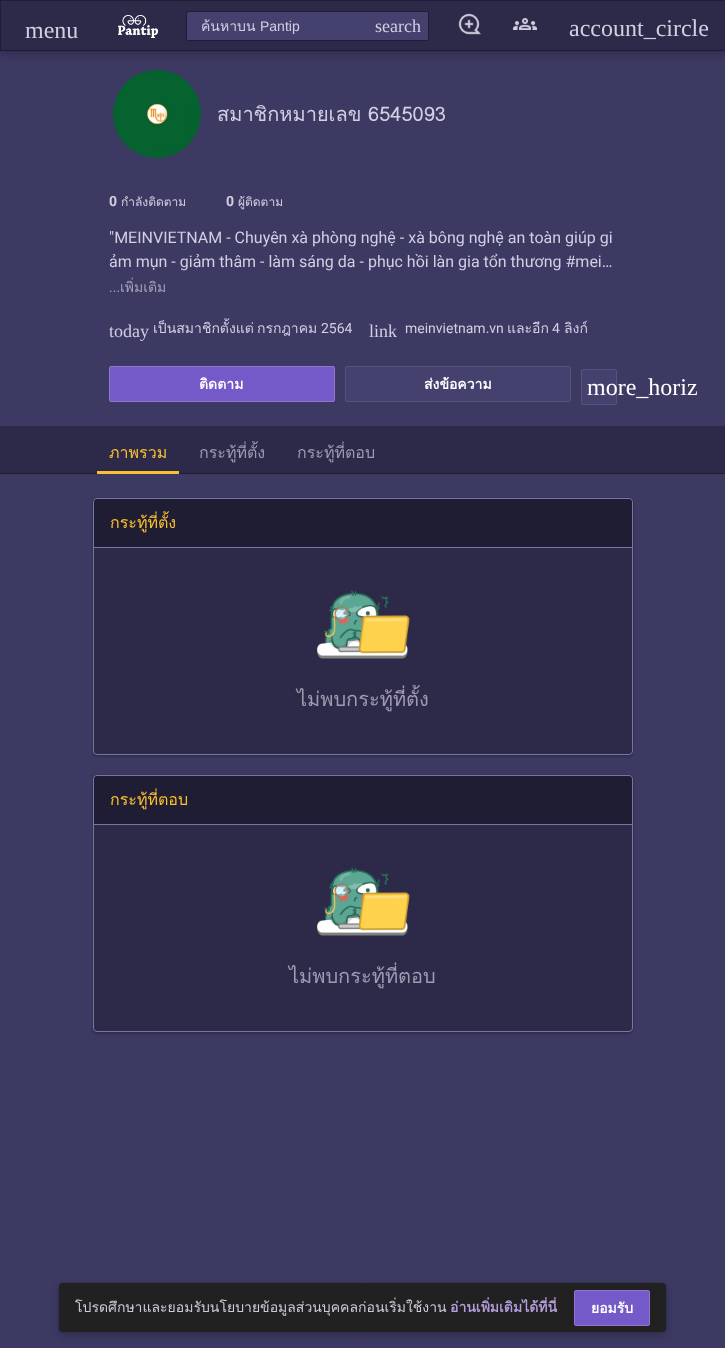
async function draw(canvas) {
  canvas.width = 725
  canvas.height = 1348
  const ctx = canvas.getContext('2d')
  ctx.miterLimit = 4
  ctx.fontKerning = 'normal'
  async function loadImage(src) {
    const img = new Image()
    img.src = src
    await img.decode()
    return img
  }

  ctx.fillStyle = '#3c3963'
  ctx.fillRect(0, 0, 725, 1348)
  ctx.strokeStyle = '#37345b'
  ctx.strokeRect(-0.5, -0.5, 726, 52)
  ctx.fillStyle = '#00000033'
  ctx.filter = 'blur(4px)'
  ctx.beginPath()
  ctx.rect(0, 3, 725, 51)
  ctx.fill()
  ctx.filter = 'none'
  ctx.fillStyle = '#2d2a49'
  ctx.fillRect(1, 1, 724, 49)
  ctx.fillStyle = '#1f1d33'
  ctx.fillRect(0, 50, 725, 1)
  ctx.fillRect(0, 0, 725, 1)
  ctx.fillRect(0, 0, 1, 50)
  ctx.font = '24px Liberation Serif'
  ctx.fillStyle = '#d3cfe3'
  ctx.fillText('menu', 25, 38)
  ctx.drawImage(await loadImage('image0.png'), 118, 15, 40, 23)
  ctx.fillStyle = '#44416f'
  ctx.beginPath()
  ctx.roundRect(186.5, 11.5, 242, 29, 1.5)
  ctx.fill()
  ctx.strokeStyle = '#1f1d33'
  ctx.stroke()
  ctx.font = '14px Loma'
  ctx.fillStyle = '#d3cfe3'
  ctx.fillText('ค้นหาบน', 201, 31)
  ctx.font = '14px Liberation Sans'
  ctx.fillText('Pantip', 260, 31)
  ctx.font = '18px Liberation Serif'
  ctx.fillText('search', 375, 32)
  ctx.drawImage(await loadImage('image1.png'), 458, 13, 23, 22)
  ctx.drawImage(await loadImage('image2.png'), 513, 18, 24, 12)
  ctx.font = '24px Liberation Serif'
  ctx.fillText('account_circle', 569, 36)
  ctx.drawImage(await loadImage('image3.png'), 113, 70, 88, 88)
  ctx.font = '20px Loma'
  ctx.fillText('สมาชิกหมายเลข 6545093', 217, 121)
  ctx.font = 'bold 14px Roboto'
  ctx.fillText('0', 109, 206)
  ctx.font = '12px Loma'
  ctx.fillText('กำลังติดตาม', 121, 206)
  ctx.font = 'bold 14px Roboto'
  ctx.fillText('0', 226, 206)
  ctx.font = '12px Loma'
  ctx.fillText('ผู้ติดตาม', 238, 206)
  ctx.font = '16px Roboto'
  ctx.fillText('"MEINVIETNAM - Chuyên xà phòng nghệ - xà bông nghệ an toàn giúp gi', 109, 243)
  ctx.fillText('ảm mụn - giảm thâm - làm sáng da - phục hồi làn gia tổn thương #mei…', 109, 267)
  ctx.font = '14px Roboto'
  ctx.fillStyle = '#a4a0bb'
  ctx.fillText('...', 109, 292)
  ctx.font = '14px Loma'
  ctx.fillText('เพิ่มเติม', 120, 292)
  ctx.font = '18px Liberation Serif'
  ctx.fillStyle = '#d3cfe3'
  ctx.fillText('today', 109, 337)
  ctx.font = '14px Loma'
  ctx.fillText('เป็นสมาชิกตั้งแต่', 153, 333)
  ctx.fillText('กรกฎาคม', 257, 333)
  ctx.font = '14px Roboto'
  ctx.fillText('2564', 321, 333)
  ctx.font = '18px Liberation Serif'
  ctx.fillText('link', 369, 337)
  ctx.font = '14px Roboto'
  ctx.fillText('meinvietnam.vn', 405, 333)
  ctx.font = '14px Loma'
  ctx.fillText('และอีก', 507, 333)
  ctx.font = '14px Roboto'
  ctx.fillText('4', 552, 333)
  ctx.font = '14px Loma'
  ctx.fillText('ลิงก์', 564, 333)
  ctx.fillStyle = '#44416f'
  ctx.beginPath()
  ctx.roundRect(581.5, 369.5, 35, 35, 1.5)
  ctx.fill()
  ctx.strokeStyle = '#565380'
  ctx.stroke()
  ctx.font = '24px Liberation Serif'
  ctx.fillStyle = '#fff'
  ctx.fillText('more_horiz', 587, 395)
  ctx.fillStyle = '#7459c8'
  ctx.beginPath()
  ctx.roundRect(109.5, 366.5, 225, 35, 1.5)
  ctx.fill()
  ctx.strokeStyle = '#9575cd'
  ctx.stroke()
  ctx.font = 'bold 14px Loma'
  ctx.fillStyle = '#fff'
  ctx.fillText('ติดตาม', 199, 389)
  ctx.fillStyle = '#44416f'
  ctx.beginPath()
  ctx.roundRect(345.5, 366.5, 225, 35, 1.5)
  ctx.fill()
  ctx.strokeStyle = '#565380'
  ctx.stroke()
  ctx.fillStyle = '#fff'
  ctx.fillText('ส่งข้อความ', 424, 389)
  ctx.fillStyle = '#2d2a49'
  ctx.fillRect(0, 426, 725, 47)
  ctx.fillStyle = '#1f1d33'
  ctx.fillRect(0, 473, 725, 1)
  ctx.fillStyle = '#fbc02d'
  ctx.fillRect(97, 471, 82, 3)
  ctx.font = '16px Loma'
  ctx.fillText('ภาพรวม', 109, 458)
  ctx.fillStyle = '#9e9ab1'
  ctx.fillText('กระทู้ที่ตั้ง', 199, 458)
  ctx.fillText('กระทู้ที่ตอบ', 297, 458)
  ctx.beginPath()
  ctx.roundRect(92.5, 497.5, 541, 258, 4.5)
  ctx.strokeStyle = '#37345b'
  ctx.stroke()
  ctx.fillStyle = '#00000029'
  ctx.filter = 'blur(1px)'
  ctx.beginPath()
  ctx.roundRect(93, 500, 540, 257, 4)
  ctx.fill()
  ctx.filter = 'none'
  ctx.fillStyle = '#2d2a49'
  ctx.beginPath()
  ctx.roundRect(93.5, 498.5, 539, 256, 3.5)
  ctx.fill()
  ctx.strokeStyle = '#7976a0'
  ctx.stroke()
  ctx.fillStyle = '#1f1d33'
  ctx.beginPath()
  ctx.roundRect(94, 499, 538, 49, [4, 4, 0, 0])
  ctx.fill()
  ctx.fillStyle = '#7976a0'
  ctx.fillRect(94, 547, 538, 1)
  ctx.fillStyle = '#fbc02d'
  ctx.fillText('กระทู้ที่ตั้ง', 110, 528)
  ctx.drawImage(await loadImage('image4.png'), 316, 590, 94, 69)
  ctx.font = '20px Loma'
  ctx.fillStyle = '#9e9ab1'
  ctx.fillText('ไม่พบกระทู้ที่ตั้ง', 297, 706)
  ctx.beginPath()
  ctx.roundRect(92.5, 774.5, 541, 258, 4.5)
  ctx.strokeStyle = '#37345b'
  ctx.stroke()
  ctx.fillStyle = '#00000029'
  ctx.filter = 'blur(1px)'
  ctx.beginPath()
  ctx.roundRect(93, 777, 540, 257, 4)
  ctx.fill()
  ctx.filter = 'none'
  ctx.fillStyle = '#2d2a49'
  ctx.beginPath()
  ctx.roundRect(93.5, 775.5, 539, 256, 3.5)
  ctx.fill()
  ctx.strokeStyle = '#7976a0'
  ctx.stroke()
  ctx.fillStyle = '#1f1d33'
  ctx.beginPath()
  ctx.roundRect(94, 776, 538, 49, [4, 4, 0, 0])
  ctx.fill()
  ctx.fillStyle = '#7976a0'
  ctx.fillRect(94, 824, 538, 1)
  ctx.font = '16px Loma'
  ctx.fillStyle = '#fbc02d'
  ctx.fillText('กระทู้ที่ตอบ', 110, 805)
  ctx.drawImage(await loadImage('image4.png'), 316, 867, 94, 69)
  ctx.font = '20px Loma'
  ctx.fillStyle = '#9e9ab1'
  ctx.fillText('ไม่พบกระทู้ที่ตอบ', 289, 983)
  ctx.beginPath()
  ctx.roundRect(58.5, 1282.5, 608, 50, 4.5)
  ctx.strokeStyle = '#37345b'
  ctx.stroke()
  ctx.fillStyle = '#00000033'
  ctx.filter = 'blur(4px)'
  ctx.beginPath()
  ctx.roundRect(59, 1286, 607, 49, 4)
  ctx.fill()
  ctx.filter = 'none'
  ctx.fillStyle = '#212121'
  ctx.beginPath()
  ctx.roundRect(59, 1283, 607, 49, 4)
  ctx.fill()
  ctx.font = '14px Loma'
  ctx.fillStyle = '#cfccda'
  ctx.fillText('โปรดศึกษาและยอมรับนโยบายข้อมูลส่วนบุคคลก่อนเริ่มใช้งาน', 75, 1312)
  ctx.font = 'bold 14px Loma'
  ctx.fillStyle = '#b39ddb'
  ctx.fillText('อ่านเพิ่มเติมได้ที่นี่', 450, 1312)
  ctx.fillStyle = '#7459c8'
  ctx.beginPath()
  ctx.roundRect(574.5, 1290.5, 75, 35, 1.5)
  ctx.fill()
  ctx.strokeStyle = '#9575cd'
  ctx.stroke()
  ctx.fillStyle = '#fff'
  ctx.fillText('ยอมรับ', 591, 1313)
}

draw(document.querySelector('canvas'))
